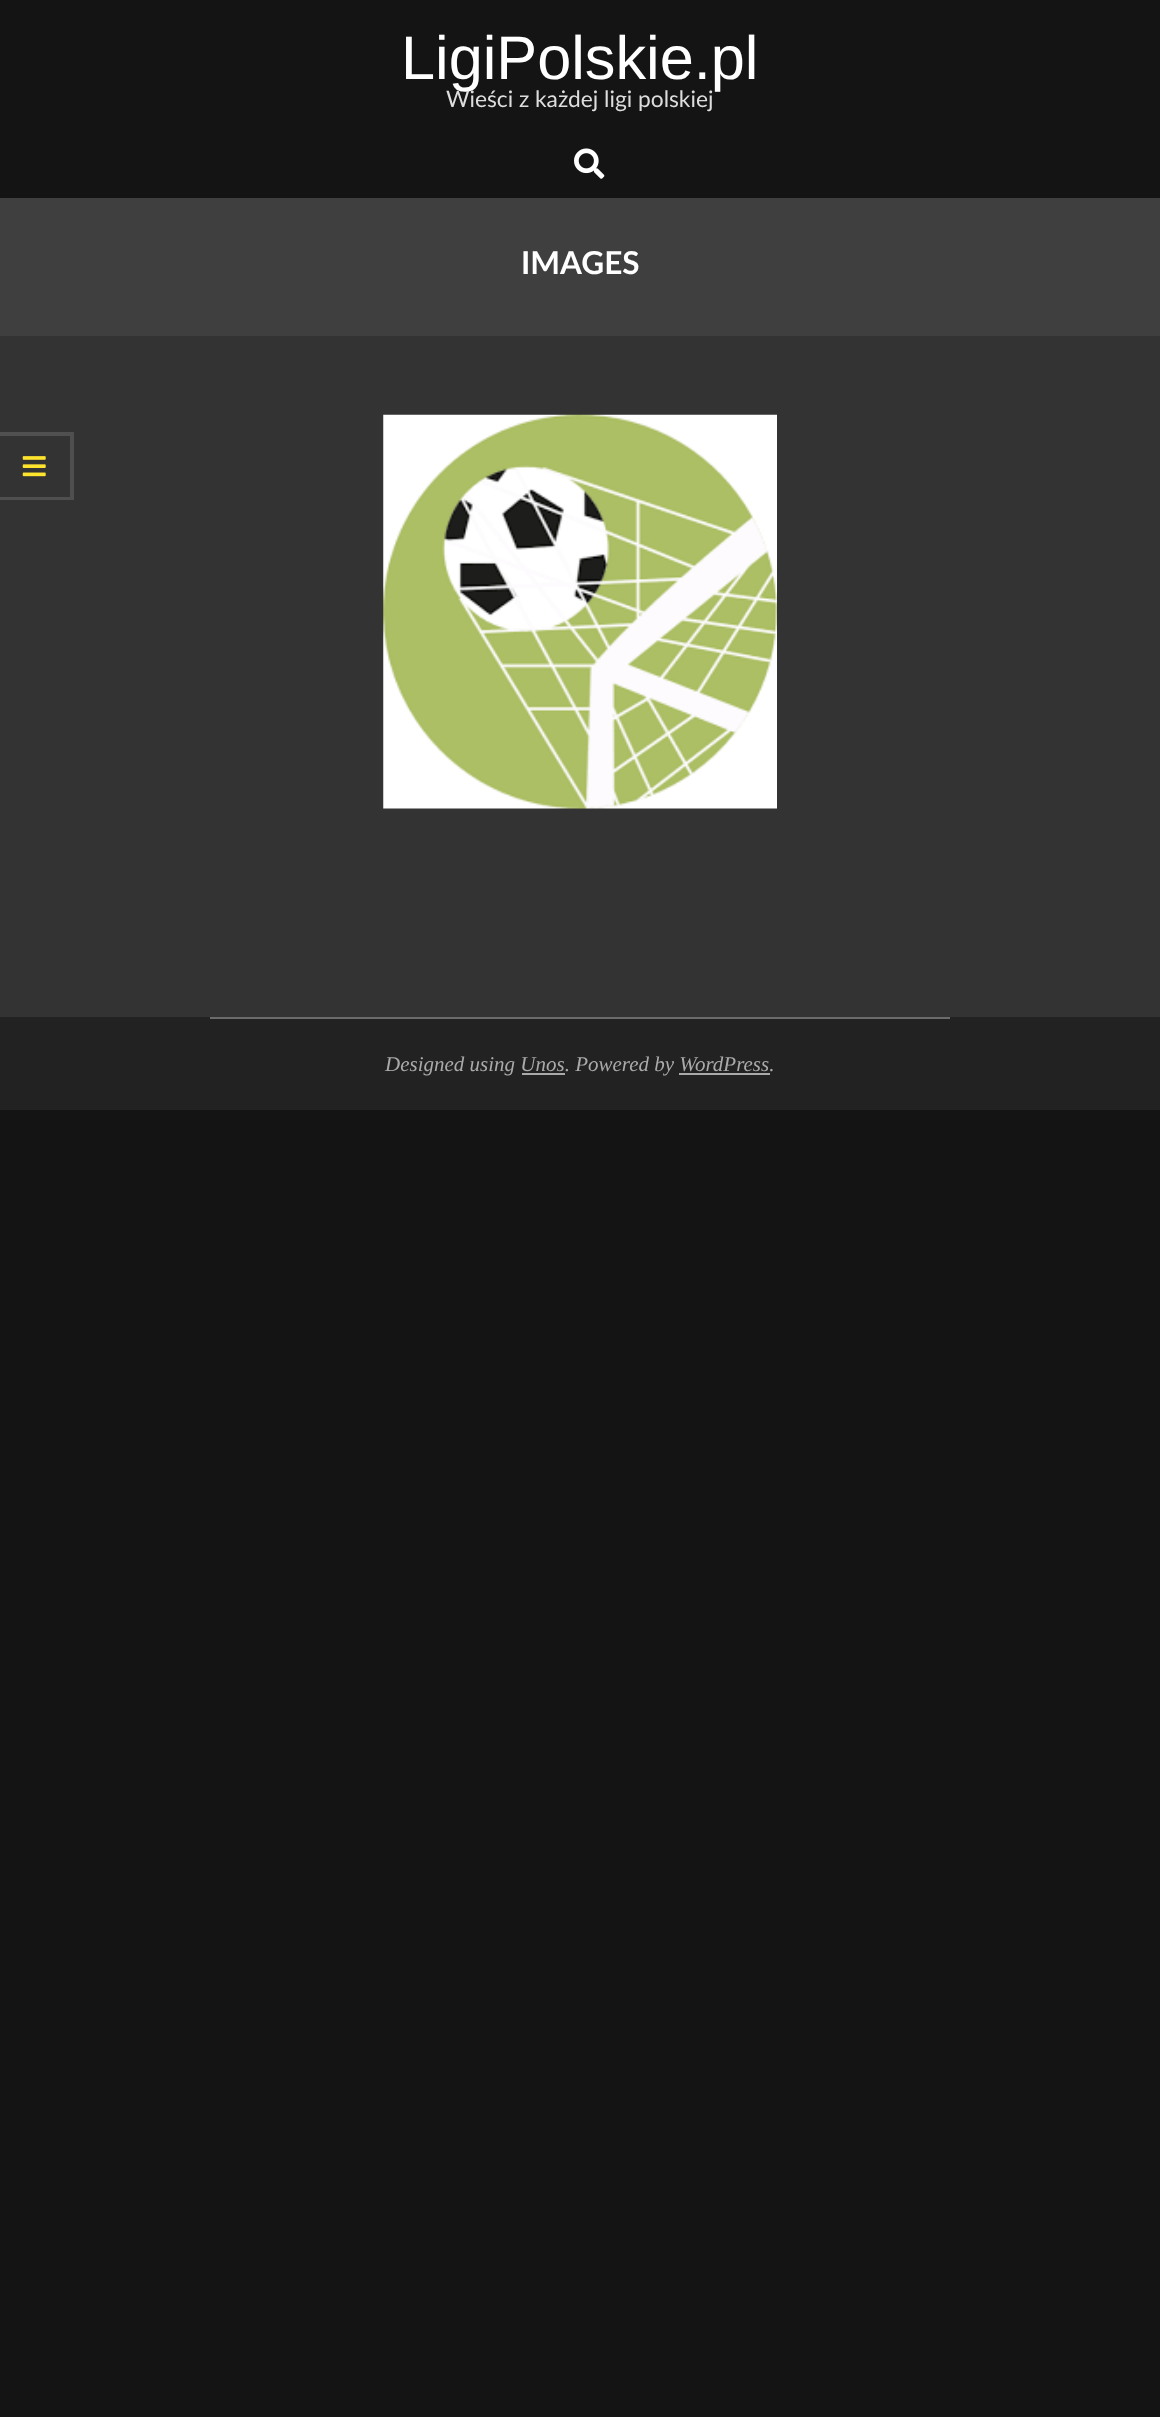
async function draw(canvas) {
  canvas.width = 1160
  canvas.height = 2417
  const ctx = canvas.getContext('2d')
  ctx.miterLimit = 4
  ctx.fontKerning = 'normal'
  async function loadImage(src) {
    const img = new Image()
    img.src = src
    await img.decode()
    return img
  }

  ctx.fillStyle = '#141414'
  ctx.fillRect(0, 0, 1160, 2417)
  ctx.font = '61.25px Liberation Sans'
  ctx.fillStyle = '#fff'
  ctx.fillText('LigiPolskie.pl', 401, 79)
  ctx.font = '22.75px Lato'
  ctx.fillStyle = '#ddd'
  ctx.fillText('Wieści z każdej ligi polskiej', 446, 107)
  ctx.drawImage(await loadImage('image0.png'), 574, 148, 31, 31)
  ctx.fillStyle = '#333'
  ctx.fillRect(0, 336, 1160, 681)
  ctx.fillStyle = '#505050'
  ctx.beginPath()
  ctx.moveTo(0, 432)
  ctx.lineTo(74, 432)
  ctx.lineTo(70, 436)
  ctx.lineTo(0, 436)
  ctx.closePath()
  ctx.fill()
  ctx.fillStyle = '#ffffff24'
  ctx.beginPath()
  ctx.moveTo(74, 432)
  ctx.lineTo(74, 500)
  ctx.lineTo(70, 497)
  ctx.lineTo(70, 436)
  ctx.closePath()
  ctx.fill()
  ctx.beginPath()
  ctx.moveTo(74, 500)
  ctx.lineTo(0, 500)
  ctx.lineTo(0, 497)
  ctx.lineTo(70, 497)
  ctx.closePath()
  ctx.fill()
  ctx.drawImage(await loadImage('image1.png'), 22, 456, 24, 21)
  ctx.fillStyle = '#3f3f3f'
  ctx.fillRect(0, 198, 1160, 138)
  ctx.font = 'bold 31.5px Lato'
  ctx.fillStyle = '#fff'
  ctx.fillText('IMAGES', 521, 274)
  ctx.drawImage(await loadImage('image2.png'), 383, 414, 394, 395)
  ctx.fillStyle = '#222'
  ctx.fillRect(0, 1017, 1160, 93)
  ctx.fillStyle = '#6b6b6b'
  ctx.fillRect(210, 1017, 740, 2)
  ctx.font = 'italic 21px Liberation Serif'
  ctx.fillStyle = '#aaa'
  ctx.fillText('Designed using Unos. Powered by WordPress.', 385, 1071)
  ctx.fillRect(522, 1073, 43, 2)
  ctx.fillRect(679, 1073, 91, 2)
}

draw(document.querySelector('canvas'))
